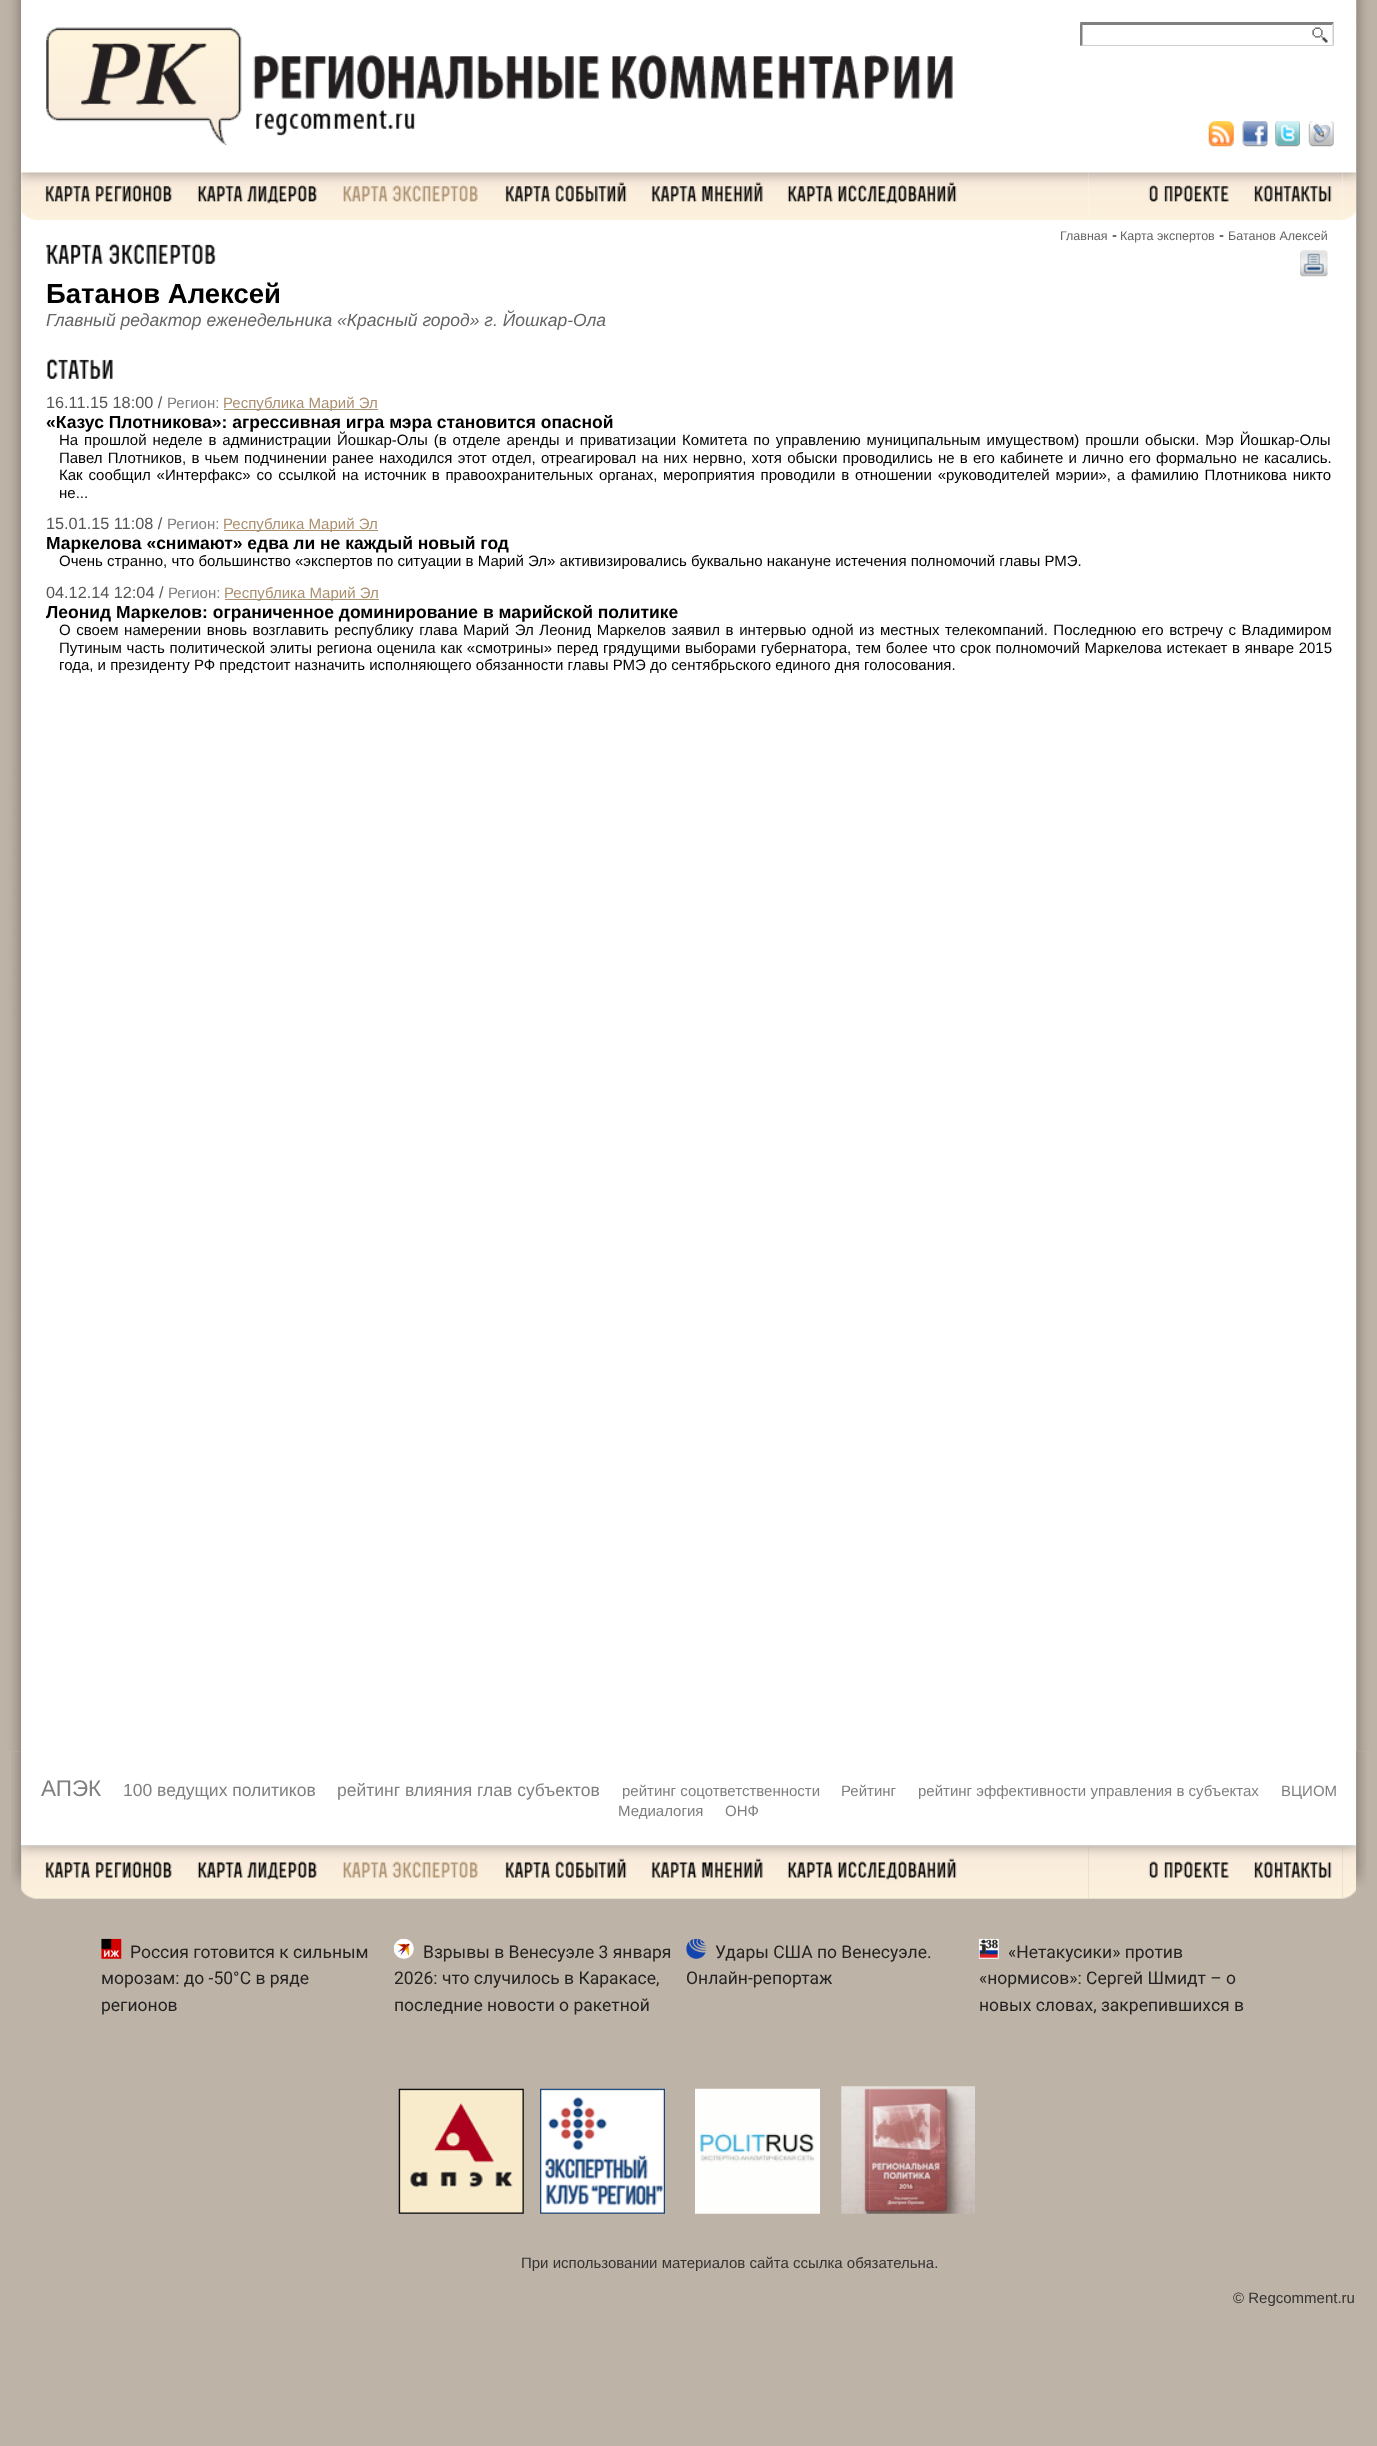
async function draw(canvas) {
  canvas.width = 1377
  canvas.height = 2446
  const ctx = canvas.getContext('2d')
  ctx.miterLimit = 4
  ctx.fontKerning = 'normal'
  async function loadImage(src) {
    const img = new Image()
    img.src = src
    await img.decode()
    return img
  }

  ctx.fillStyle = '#fff'
  ctx.fillRect(0, 0, 1377, 2446)
  ctx.drawImage(await loadImage('image0.png'), 0, 0, 21, 1751)
  ctx.drawImage(await loadImage('image1.png'), 46, 27, 196, 119)
  ctx.drawImage(await loadImage('image2.png'), 253, 54, 700, 82)
  ctx.fillStyle = '#808080'
  ctx.beginPath()
  ctx.moveTo(1080, 22)
  ctx.lineTo(1334, 22)
  ctx.lineTo(1332, 25)
  ctx.lineTo(1082, 25)
  ctx.closePath()
  ctx.fill()
  ctx.fillStyle = '#cecece'
  ctx.beginPath()
  ctx.moveTo(1334, 22.5)
  ctx.lineTo(1334, 46)
  ctx.lineTo(1332.5, 45)
  ctx.lineTo(1332.5, 25)
  ctx.closePath()
  ctx.fill()
  ctx.beginPath()
  ctx.moveTo(1334, 46)
  ctx.lineTo(1080, 46)
  ctx.lineTo(1082, 45)
  ctx.lineTo(1332, 45)
  ctx.closePath()
  ctx.fill()
  ctx.fillStyle = '#808080'
  ctx.beginPath()
  ctx.moveTo(1080, 46)
  ctx.lineTo(1080, 22.5)
  ctx.lineTo(1082.5, 25)
  ctx.lineTo(1082.5, 45)
  ctx.closePath()
  ctx.fill()
  ctx.drawImage(await loadImage('image3.png'), 1312, 27, 16, 16)
  ctx.drawImage(await loadImage('image4.png'), 1208, 121, 26, 26)
  ctx.drawImage(await loadImage('image5.png'), 1242, 121, 26, 26)
  ctx.drawImage(await loadImage('image6.png'), 1275, 121, 25, 26)
  ctx.drawImage(await loadImage('image7.png'), 1308, 121, 26, 26)
  ctx.drawImage(await loadImage('image8.png'), 21, 172, 14, 48)
  ctx.drawImage(await loadImage('image9.png'), 35, 172, 1054, 48)
  ctx.drawImage(await loadImage('image10.png'), 45, 186, 46, 16)
  ctx.drawImage(await loadImage('image11.png'), 95, 185, 77, 17)
  ctx.drawImage(await loadImage('image12.png'), 197, 186, 46, 16)
  ctx.drawImage(await loadImage('image13.png'), 247, 185, 70, 19)
  ctx.drawImage(await loadImage('image14.png'), 343, 186, 45, 16)
  ctx.drawImage(await loadImage('image15.png'), 392, 185, 86, 17)
  ctx.drawImage(await loadImage('image16.png'), 505, 186, 46, 16)
  ctx.drawImage(await loadImage('image17.png'), 555, 182, 72, 20)
  ctx.drawImage(await loadImage('image18.png'), 651, 186, 46, 16)
  ctx.drawImage(await loadImage('image19.png'), 701, 182, 62, 20)
  ctx.drawImage(await loadImage('image20.png'), 787, 186, 46, 16)
  ctx.drawImage(await loadImage('image21.png'), 837, 182, 120, 22)
  ctx.drawImage(await loadImage('image22.png'), 1088, 172, 255, 48)
  ctx.drawImage(await loadImage('image23.png'), 1148, 185, 10, 17)
  ctx.drawImage(await loadImage('image24.png'), 1164, 185, 65, 17)
  ctx.drawImage(await loadImage('image25.png'), 1254, 185, 78, 17)
  ctx.drawImage(await loadImage('image26.png'), 1342, 172, 15, 48)
  ctx.font = '12.5px Liberation Sans'
  ctx.fillStyle = '#646464'
  ctx.fillText('Главная', 1060, 240)
  ctx.font = '15px Liberation Sans'
  ctx.fillStyle = '#000'
  ctx.fillText('-', 1112, 240)
  ctx.font = '12.5px Liberation Sans'
  ctx.fillStyle = '#646464'
  ctx.fillText('Карта экспертов', 1120, 240)
  ctx.font = '15px Liberation Sans'
  ctx.fillStyle = '#000'
  ctx.fillText('-', 1219, 240)
  ctx.font = '12.5px Liberation Sans'
  ctx.fillStyle = '#646464'
  ctx.fillText('Батанов Алексей', 1228, 240)
  ctx.drawImage(await loadImage('image27.png'), 1300, 250, 28, 27)
  ctx.drawImage(await loadImage('image28.png'), 46, 244, 57, 20)
  ctx.drawImage(await loadImage('image29.png'), 108, 243, 108, 21)
  ctx.font = 'bold 27.5px Liberation Sans'
  ctx.fillStyle = '#000'
  ctx.fillText('Батанов Алексей', 46, 303)
  ctx.font = 'italic 17.5px Liberation Sans'
  ctx.fillStyle = '#646464'
  ctx.fillText('Главный редактор еженедельника «Красный город» г. Йошкар-Ола', 46, 326)
  ctx.drawImage(await loadImage('image30.png'), 47, 358, 66, 21)
  ctx.font = '16.25px Liberation Sans'
  ctx.fillStyle = '#565656'
  ctx.fillText('16.11.15 18:00 /', 46, 408)
  ctx.font = '15px Liberation Sans'
  ctx.fillStyle = '#7f7f7f'
  ctx.fillText('Регион:', 167, 408)
  ctx.fillStyle = '#ab9070'
  ctx.fillRect(224, 409, 154, 1)
  ctx.fillText('Республика Марий Эл', 223, 408)
  ctx.font = 'bold 17.5px Liberation Sans'
  ctx.fillStyle = '#000'
  ctx.fillText('«Казус Плотникова»: агрессивная игра мэра становится опасной', 46, 428)
  ctx.wordSpacing = '1.75px'
  ctx.font = '15px Liberation Sans'
  ctx.fillText('На прошлой неделе в администрации Йошкар-Олы (в отделе аренды и приватизации Комитета по управлению муниципальным имуществом) прошли обыски. Мэр Йошкар-Олы', 59, 445)
  ctx.wordSpacing = '1.05px'
  ctx.fillText('Павел Плотников, в чьем подчинении ранее находился этот отдел, отреагировал на них нервно, хотя обыски проводились не в его кабинете и лично его формально не касались.', 59, 463)
  ctx.wordSpacing = '1.6px'
  ctx.fillText('Как сообщил «Интерфакс» со ссылкой на источник в правоохранительных органах, мероприятия проводили в отношении «руководителей мэрии», а фамилию Плотникова никто', 59, 480)
  ctx.wordSpacing = '0px'
  ctx.fillText('не...', 59, 498)
  ctx.font = '16.25px Liberation Sans'
  ctx.fillStyle = '#565656'
  ctx.fillText('15.01.15 11:08 /', 46, 529)
  ctx.font = '15px Liberation Sans'
  ctx.fillStyle = '#7f7f7f'
  ctx.fillText('Регион:', 167, 529)
  ctx.fillStyle = '#ab9070'
  ctx.fillRect(224, 530, 154, 1)
  ctx.fillText('Республика Марий Эл', 223, 529)
  ctx.font = 'bold 17.5px Liberation Sans'
  ctx.fillStyle = '#000'
  ctx.fillText('Маркелова «снимают» едва ли не каждый новый год', 46, 549)
  ctx.font = '15px Liberation Sans'
  ctx.fillText('Очень странно, что большинство «экспертов по ситуации в Марий Эл» активизировались буквально накануне истечения полномочий главы РМЭ.', 59, 566)
  ctx.font = '16.25px Liberation Sans'
  ctx.fillStyle = '#565656'
  ctx.fillText('04.12.14 12:04 /', 46, 598)
  ctx.font = '15px Liberation Sans'
  ctx.fillStyle = '#7f7f7f'
  ctx.fillText('Регион:', 168, 598)
  ctx.fillStyle = '#ab9070'
  ctx.fillRect(225, 599, 154, 1)
  ctx.fillText('Республика Марий Эл', 224, 598)
  ctx.font = 'bold 17.5px Liberation Sans'
  ctx.fillStyle = '#000'
  ctx.fillText('Леонид Маркелов: ограниченное доминирование в марийской политике', 46, 618)
  ctx.wordSpacing = '1.4px'
  ctx.font = '15px Liberation Sans'
  ctx.fillText('О своем намерении вновь возглавить республику глава Марий Эл Леонид Маркелов заявил в интервью одной из местных телекомпаний. Последнюю его встречу с Владимиром', 59, 635)
  ctx.wordSpacing = '0.5px'
  ctx.fillText('Путиным часть политической элиты региона оценила как «смотрины» перед грядущими выборами губернатора, тем более что срок полномочий Маркелова истекает в январе 2015', 59, 653)
  ctx.wordSpacing = '0px'
  ctx.fillText('года, и президенту РФ предстоит назначить исполняющего обязанности главы РМЭ до сентябрьского единого дня голосования.', 59, 670)
  ctx.drawImage(await loadImage('image31.png'), 1356, 0, 21, 1751)
  ctx.fillStyle = '#beb3a7'
  ctx.fillRect(0, 1751, 21, 695)
  ctx.drawImage(await loadImage('image32.png'), 11, 1751, 10, 94)
  ctx.font = '22.5px Liberation Sans'
  ctx.fillStyle = '#7f7f7f'
  ctx.fillText('АПЭК', 41, 1796)
  ctx.font = '17.5px Liberation Sans'
  ctx.fillText('100 ведущих политиков', 123, 1796)
  ctx.fillText('рейтинг влияния глав субъектов', 337, 1796)
  ctx.font = '15px Liberation Sans'
  ctx.fillText('рейтинг соцответственности', 622, 1796)
  ctx.fillText('Рейтинг', 841, 1796)
  ctx.fillText('рейтинг эффективности управления в субъектах', 918, 1796)
  ctx.fillText('ВЦИОМ', 1281, 1796)
  ctx.fillText('Медиалогия', 618, 1816)
  ctx.fillText('ОНФ', 725, 1816)
  ctx.fillStyle = '#beb3a7'
  ctx.fillRect(1356, 1751, 21, 94)
  ctx.drawImage(await loadImage('image33.png'), 1356, 1751, 11, 94)
  ctx.drawImage(await loadImage('image34.png'), 11, 1845, 10, 55)
  ctx.fillRect(21, 1845, 1356, 601)
  ctx.drawImage(await loadImage('image35.png'), 1356, 1845, 11, 42)
  ctx.drawImage(await loadImage('image36.png'), 21, 1845, 14, 55)
  ctx.drawImage(await loadImage('image37.png'), 35, 1845, 1054, 54)
  ctx.drawImage(await loadImage('image38.png'), 45, 1862, 46, 16)
  ctx.drawImage(await loadImage('image39.png'), 95, 1861, 77, 17)
  ctx.drawImage(await loadImage('image40.png'), 197, 1862, 46, 16)
  ctx.drawImage(await loadImage('image41.png'), 247, 1861, 70, 19)
  ctx.drawImage(await loadImage('image42.png'), 343, 1862, 45, 16)
  ctx.drawImage(await loadImage('image43.png'), 392, 1861, 86, 17)
  ctx.drawImage(await loadImage('image44.png'), 505, 1862, 46, 16)
  ctx.drawImage(await loadImage('image45.png'), 555, 1858, 72, 20)
  ctx.drawImage(await loadImage('image46.png'), 651, 1862, 46, 16)
  ctx.drawImage(await loadImage('image47.png'), 701, 1858, 62, 20)
  ctx.drawImage(await loadImage('image48.png'), 787, 1862, 46, 16)
  ctx.drawImage(await loadImage('image49.png'), 837, 1858, 120, 23)
  ctx.drawImage(await loadImage('image50.png'), 1089, 1845, 254, 54)
  ctx.drawImage(await loadImage('image51.png'), 1148, 1861, 10, 17)
  ctx.drawImage(await loadImage('image52.png'), 1164, 1861, 65, 17)
  ctx.drawImage(await loadImage('image53.png'), 1254, 1861, 78, 17)
  ctx.drawImage(await loadImage('image54.png'), 1342, 1845, 14, 55)
  ctx.drawImage(await loadImage('image55.png'), 101, 1938, 21, 21)
  ctx.font = '17.5px Roboto'
  ctx.fillStyle = '#232323'
  ctx.fillText('Россия готовится к сильным', 130, 1958)
  ctx.fillText('морозам: до -50°C в ряде', 101, 1984)
  ctx.fillText('регионов', 101, 2011)
  ctx.drawImage(await loadImage('image56.png'), 393, 1938, 21, 21)
  ctx.fillText('Взрывы в Венесуэле 3 января', 423, 1958)
  ctx.fillText('2026: что случилось в Каракасе,', 394, 1984)
  ctx.fillText('последние новости о ракетной', 394, 2011)
  ctx.drawImage(await loadImage('image57.png'), 686, 1938, 21, 21)
  ctx.fillText('Удары США по Венесуэле.', 715, 1958)
  ctx.fillText('Онлайн-репортаж', 686, 1984)
  ctx.drawImage(await loadImage('image58.png'), 978, 1938, 21, 21)
  ctx.fillText('«Нетакусики» против', 1008, 1958)
  ctx.fillText('«нормисов»: Сергей Шмидт – о', 979, 1984)
  ctx.fillText('новых словах, закрепившихся в', 979, 2011)
  ctx.drawImage(await loadImage('image59.png'), 398, 2088, 126, 126)
  ctx.drawImage(await loadImage('image60.png'), 540, 2088, 125, 126)
  ctx.drawImage(await loadImage('image61.png'), 695, 2088, 125, 126)
  ctx.drawImage(await loadImage('image62.png'), 841, 2086, 134, 128)
  ctx.font = '15px Liberation Sans'
  ctx.fillStyle = '#333'
  ctx.fillText('При использовании материалов сайта ссылка обязательна.', 521, 2268)
  ctx.fillText('© Regcomment.ru', 1233, 2303)
}

draw(document.querySelector('canvas'))
